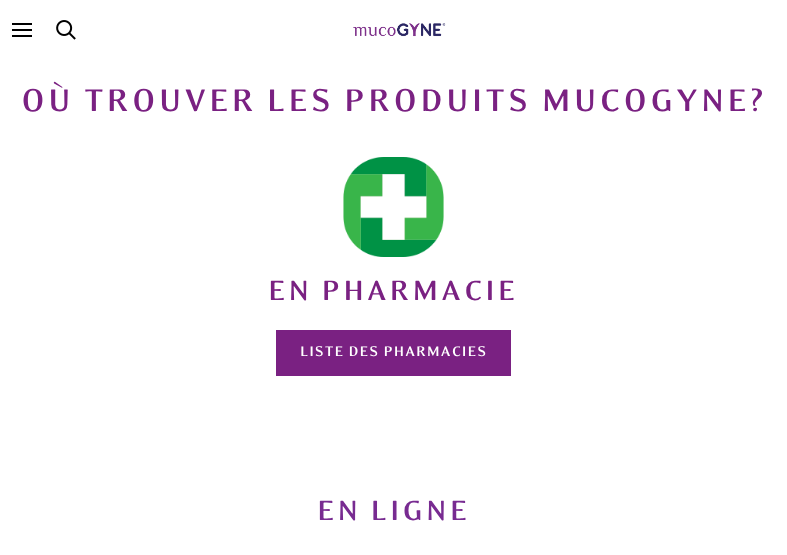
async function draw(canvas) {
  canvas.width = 787
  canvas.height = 555
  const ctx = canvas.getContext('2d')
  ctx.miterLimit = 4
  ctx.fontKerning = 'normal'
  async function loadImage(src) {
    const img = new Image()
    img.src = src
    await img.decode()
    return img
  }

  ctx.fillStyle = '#fff'
  ctx.fillRect(0, 0, 787, 555)
  ctx.drawImage(await loadImage('image0.png'), 12, 23, 20, 14)
  ctx.drawImage(await loadImage('image1.png'), 56, 20, 20, 20)
  ctx.drawImage(await loadImage('image2.png'), 353, 23, 93, 14)
  ctx.letterSpacing = '3px'
  ctx.font = 'bold 36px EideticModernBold'
  ctx.fillStyle = '#7a2182'
  ctx.fillText('OÙ TROUVER LES PRODUITS MUCOGYNE?', 21, 111)
  ctx.drawImage(await loadImage('image3.png'), 343, 157, 101, 100)
  ctx.font = 'bold 32px EideticModernBold'
  ctx.fillText('EN PHARMACIE', 268, 300)
  ctx.fillRect(276, 330, 235, 46)
  ctx.letterSpacing = '1px'
  ctx.font = 'bold 16px EideticModernBold'
  ctx.fillStyle = '#fff'
  ctx.fillText('LISTE DES PHARMACIES', 300, 356)
  ctx.letterSpacing = '3px'
  ctx.font = 'bold 32px EideticModernBold'
  ctx.fillStyle = '#782b91'
  ctx.fillText('EN LIGNE', 317, 520)
}

draw(document.querySelector('canvas'))
